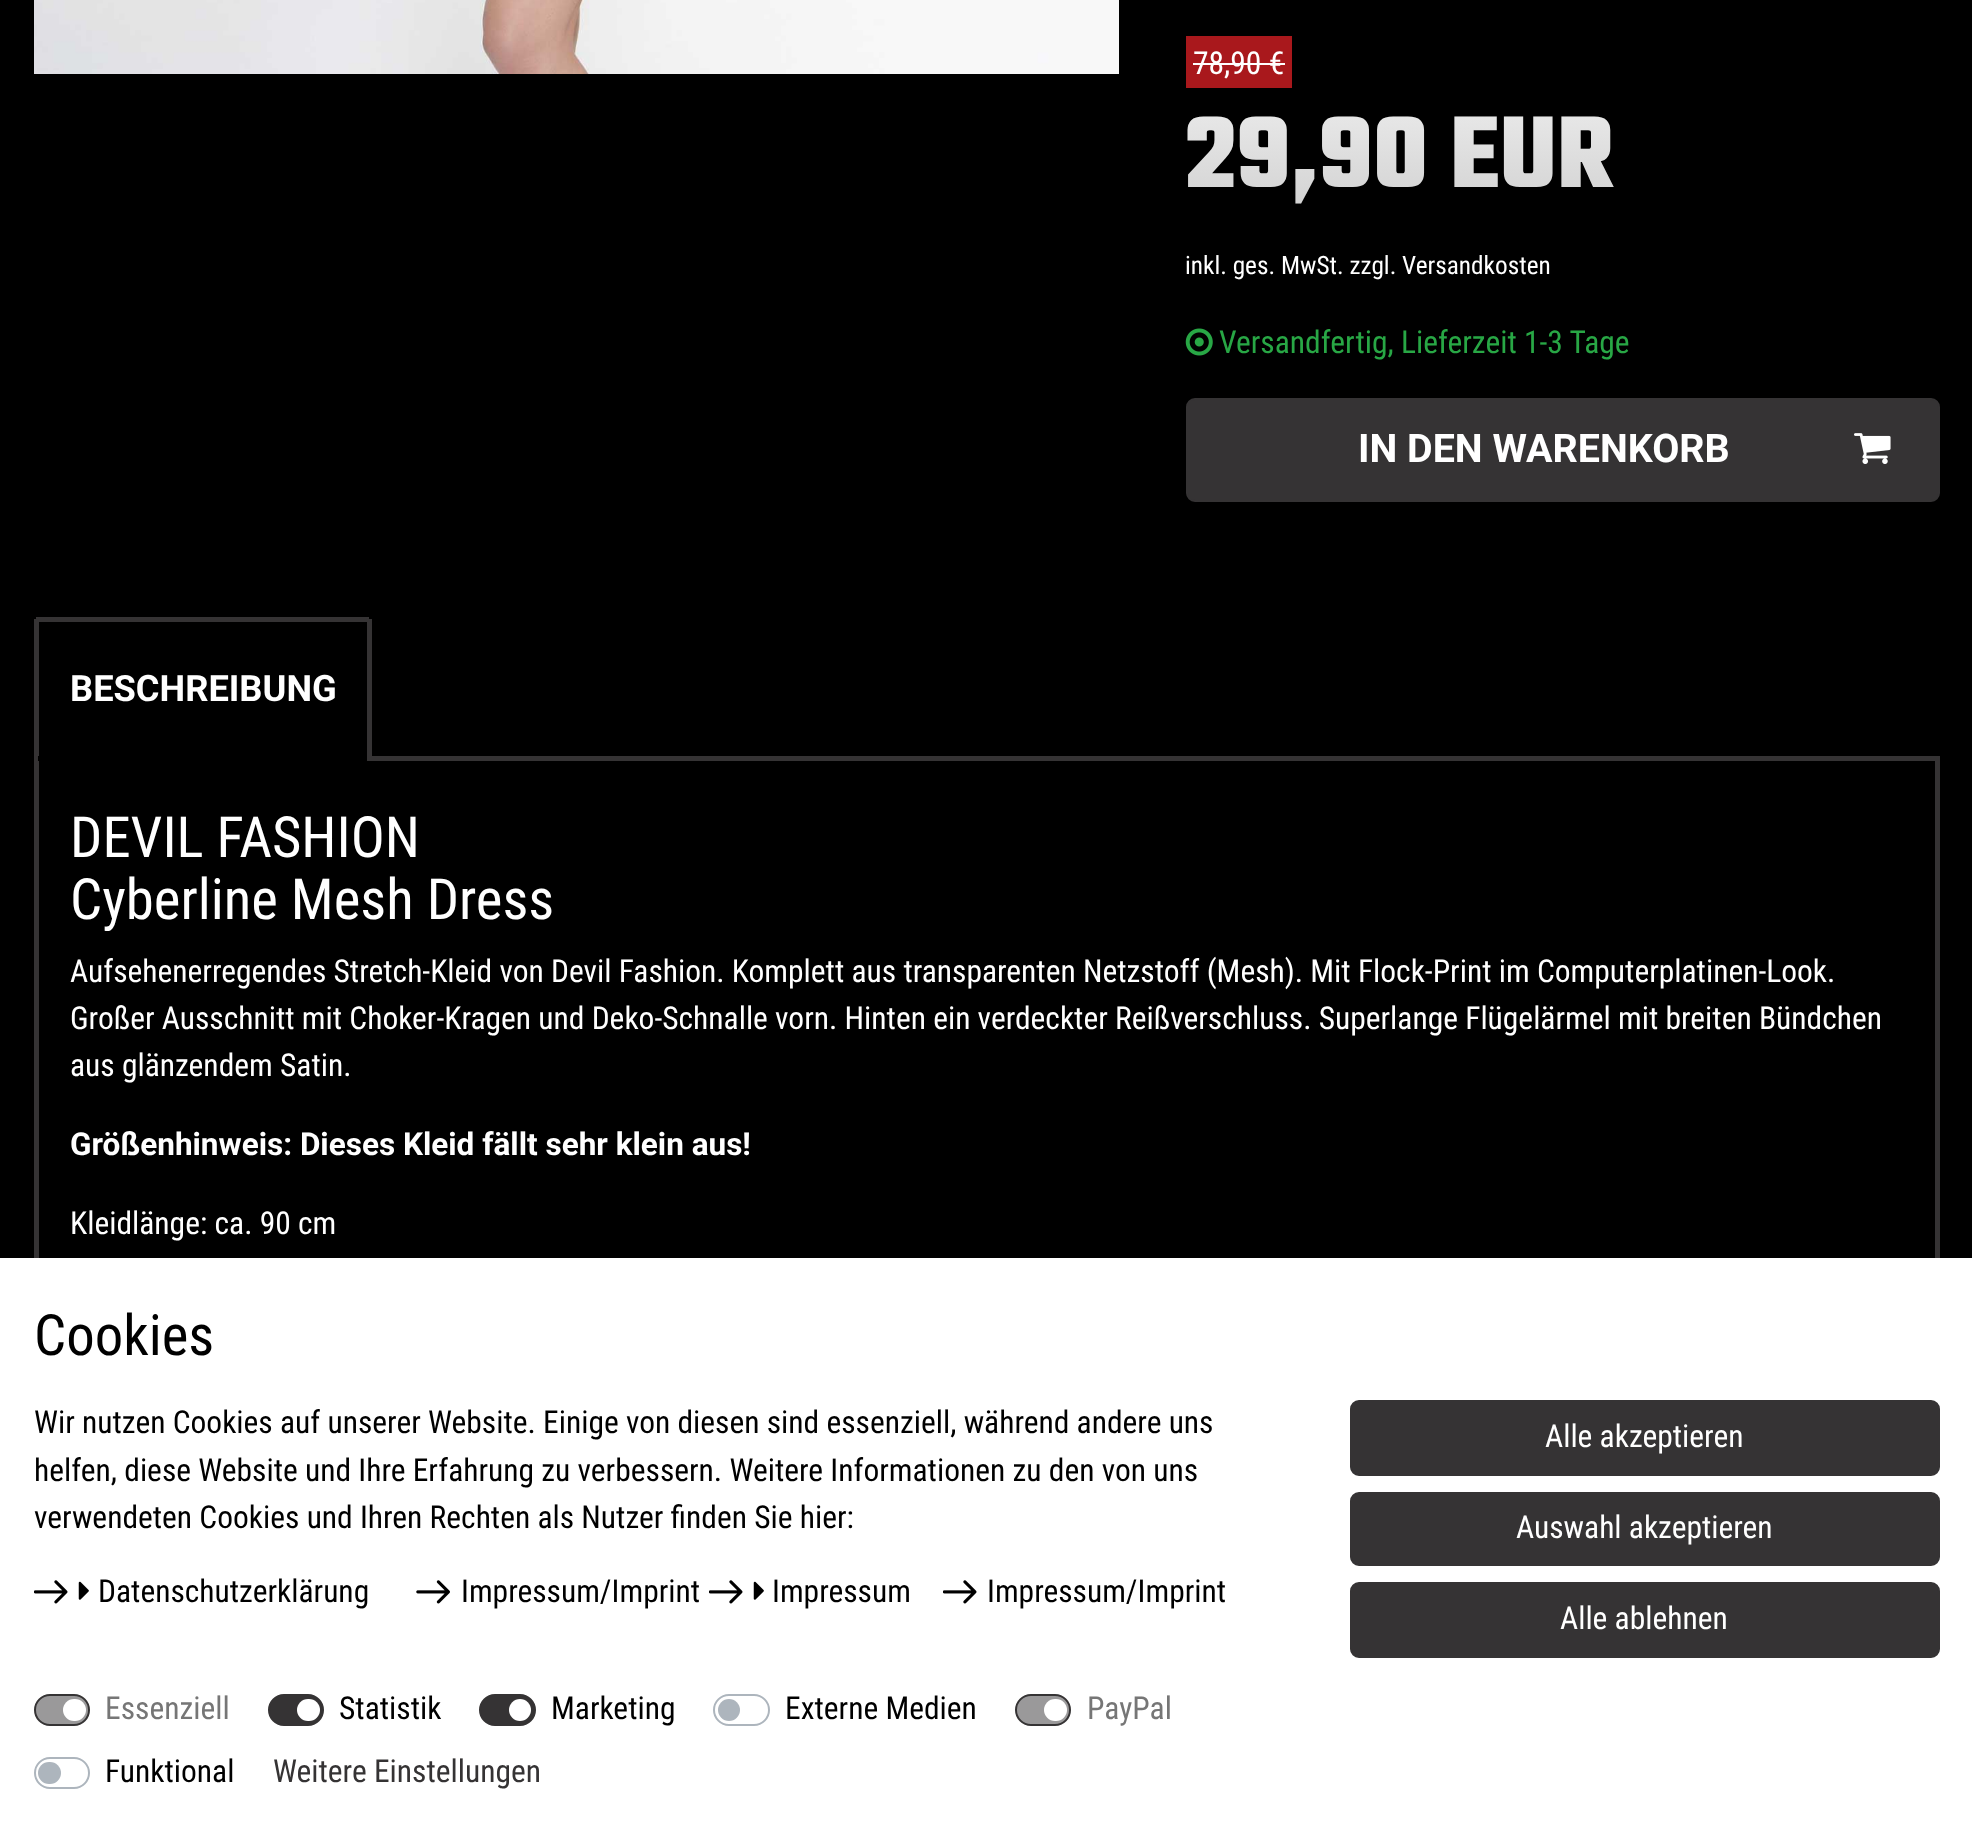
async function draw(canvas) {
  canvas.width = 1972
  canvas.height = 1841
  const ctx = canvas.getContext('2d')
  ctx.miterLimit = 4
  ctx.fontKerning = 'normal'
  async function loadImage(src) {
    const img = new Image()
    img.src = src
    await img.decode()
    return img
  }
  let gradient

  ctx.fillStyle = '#000'
  ctx.fillRect(0, 0, 1972, 1841)
  ctx.drawImage(await loadImage('image0.png'), 34, 0, 1085, 74)
  ctx.fillStyle = '#a9181c'
  ctx.fillRect(1186, 36, 106, 52)
  ctx.font = '31.5px Roboto Condensed'
  ctx.fillStyle = '#fff'
  ctx.fillText('78,90 €', 1193, 74)
  ctx.fillRect(1193, 63, 92, 2)
  ctx.font = 'bold 110px Teko'
  gradient = ctx.createLinearGradient(1400, 82, 1400, 239)
  gradient.addColorStop(0, '#eee')
  gradient.addColorStop(1, '#ccc')
  ctx.fillStyle = gradient
  ctx.fillText('29,90 EUR', 1185, 187)
  ctx.font = '25.25px Roboto Condensed'
  ctx.fillStyle = '#fff'
  ctx.fillText('inkl. ges. MwSt. zzgl. Versandkosten', 1185, 274)
  ctx.drawImage(await loadImage('image1.png'), 1185, 328, 28, 28)
  ctx.font = '31.5px Roboto Condensed'
  ctx.fillStyle = '#28a745'
  ctx.fillText('Versandfertig, Lieferzeit 1-3 Tage', 1219, 353)
  ctx.fillStyle = '#353334'
  ctx.beginPath()
  ctx.roundRect(1187, 399, 752, 102, 8)
  ctx.fill()
  ctx.strokeStyle = '#353334'
  ctx.lineWidth = 2
  ctx.stroke()
  ctx.font = 'bold 39.4px Roboto'
  ctx.fillStyle = '#fff'
  ctx.fillText('IN DEN WARENKORB', 1358, 462)
  ctx.drawImage(await loadImage('image2.png'), 1854, 433, 37, 31)
  ctx.fillStyle = '#353334'
  ctx.fillRect(34, 756, 1906, 5)
  ctx.fillRect(36, 617, 333, 5)
  ctx.fillRect(367, 619, 5, 139)
  ctx.fillRect(34, 619, 5, 139)
  ctx.font = 'bold 36.25px Roboto'
  ctx.fillStyle = '#fff'
  ctx.fillText('BESCHREIBUNG', 70, 701)
  ctx.fillStyle = '#000'
  ctx.fillRect(38, 756, 329, 5)
  ctx.fillStyle = '#353334'
  ctx.fillRect(1935, 761, 5, 497)
  ctx.fillRect(34, 761, 5, 497)
  ctx.font = '56.75px Roboto Condensed'
  ctx.fillStyle = '#fff'
  ctx.fillText('DEVIL FASHION', 70, 857)
  ctx.fillText('Cyberline Mesh Dress', 70, 919)
  ctx.font = '31.5px Roboto Condensed'
  ctx.fillText('Aufsehenerregendes Stretch-Kleid von Devil Fashion. Komplett aus transparenten Netzstoff (Mesh). Mit Flock-Print im Computerplatinen-Look.', 70, 982)
  ctx.fillText('Großer Ausschnitt mit Choker-Kragen und Deko-Schnalle vorn. Hinten ein verdeckter Reißverschluss. Superlange Flügelärmel mit breiten Bündchen', 70, 1029)
  ctx.fillText('aus glänzendem Satin.', 70, 1076)
  ctx.font = 'bold 31.5px Roboto'
  ctx.fillText('Größenhinweis: Dieses Kleid fällt sehr klein aus!', 70, 1155)
  ctx.font = '31.5px Roboto Condensed'
  ctx.fillText('Kleidlänge: ca. 90 cm', 70, 1234)
  ctx.fillRect(0, 1258, 1972, 583)
  ctx.font = '56.75px Roboto Condensed'
  ctx.fillStyle = '#000'
  ctx.fillText('Cookies', 34, 1355)
  ctx.font = '31.5px Roboto Condensed'
  ctx.fillText('Wir nutzen Cookies auf unserer Website. Einige von diesen sind essenziell, während andere uns', 34, 1433)
  ctx.fillText('helfen, diese Website und Ihre Erfahrung zu verbessern. Weitere Informationen zu den von uns', 34, 1481)
  ctx.fillText('verwendeten Cookies und Ihren Rechten als Nutzer finden Sie hier:', 34, 1528)
  ctx.drawImage(await loadImage('image3.png'), 34, 1580, 34, 24)
  ctx.drawImage(await loadImage('image4.png'), 78, 1581, 11, 19)
  ctx.fillText('Datenschutzerklärung', 98, 1602)
  ctx.drawImage(await loadImage('image5.png'), 416, 1580, 34, 24)
  ctx.fillText('Impressum/Imprint', 461, 1602)
  ctx.drawImage(await loadImage('image3.png'), 709, 1580, 34, 24)
  ctx.drawImage(await loadImage('image4.png'), 753, 1581, 11, 19)
  ctx.fillText('Impressum', 772, 1602)
  ctx.drawImage(await loadImage('image3.png'), 943, 1580, 34, 24)
  ctx.fillText('Impressum/Imprint', 987, 1602)
  ctx.fillStyle = '#9a999a'
  ctx.beginPath()
  ctx.roundRect(35, 1695, 54, 30, 15)
  ctx.fill()
  ctx.stroke()
  ctx.fillStyle = '#767676'
  ctx.fillText('Essenziell', 105, 1719)
  ctx.fillStyle = '#fff'
  ctx.beginPath()
  ctx.roundRect(63, 1699, 23, 22, 11)
  ctx.fill()
  ctx.fillStyle = '#353334'
  ctx.beginPath()
  ctx.roundRect(269, 1695, 54, 30, 15)
  ctx.fill()
  ctx.stroke()
  ctx.fillStyle = '#000'
  ctx.fillText('Statistik', 339, 1719)
  ctx.fillStyle = '#fff'
  ctx.beginPath()
  ctx.roundRect(297, 1699, 23, 22, 11)
  ctx.fill()
  ctx.fillStyle = '#353334'
  ctx.beginPath()
  ctx.roundRect(480, 1695, 55, 30, 15)
  ctx.fill()
  ctx.stroke()
  ctx.fillStyle = '#000'
  ctx.fillText('Marketing', 551, 1719)
  ctx.fillStyle = '#fff'
  ctx.beginPath()
  ctx.arc(520, 1710, 11, 0, 2 * Math.PI)
  ctx.fill()
  ctx.beginPath()
  ctx.roundRect(714, 1695, 55, 30, 15)
  ctx.strokeStyle = '#adb5bd'
  ctx.stroke()
  ctx.fillStyle = '#000'
  ctx.fillText('Externe Medien', 785, 1719)
  ctx.fillStyle = '#adb5bd'
  ctx.beginPath()
  ctx.arc(729, 1710, 11, 0, 2 * Math.PI)
  ctx.fill()
  ctx.fillStyle = '#9a999a'
  ctx.beginPath()
  ctx.roundRect(1016, 1695, 54, 30, 15)
  ctx.fill()
  ctx.strokeStyle = '#353334'
  ctx.stroke()
  ctx.fillStyle = '#767676'
  ctx.fillText('PayPal', 1087, 1719)
  ctx.fillStyle = '#fff'
  ctx.beginPath()
  ctx.roundRect(1044, 1699, 23, 22, 11)
  ctx.fill()
  ctx.beginPath()
  ctx.roundRect(35, 1758, 54, 30, 15)
  ctx.strokeStyle = '#adb5bd'
  ctx.stroke()
  ctx.fillStyle = '#000'
  ctx.fillText('Funktional', 105, 1782)
  ctx.fillStyle = '#adb5bd'
  ctx.beginPath()
  ctx.roundRect(38, 1762, 23, 22, 11)
  ctx.fill()
  ctx.fillStyle = '#353334'
  ctx.fillText('Weitere Einstellungen', 273, 1782)
  ctx.beginPath()
  ctx.roundRect(1351, 1401, 588, 74, 8)
  ctx.fill()
  ctx.strokeStyle = '#353334'
  ctx.stroke()
  ctx.fillStyle = '#fff'
  ctx.fillText('Alle akzeptieren', 1545, 1447)
  ctx.fillStyle = '#353334'
  ctx.beginPath()
  ctx.roundRect(1351, 1493, 588, 72, 8)
  ctx.fill()
  ctx.stroke()
  ctx.fillStyle = '#fff'
  ctx.fillText('Auswahl akzeptieren', 1516, 1538)
  ctx.fillStyle = '#353334'
  ctx.beginPath()
  ctx.roundRect(1351, 1583, 588, 74, 8)
  ctx.fill()
  ctx.stroke()
  ctx.fillStyle = '#fff'
  ctx.fillText('Alle ablehnen', 1560, 1629)
}

draw(document.querySelector('canvas'))
